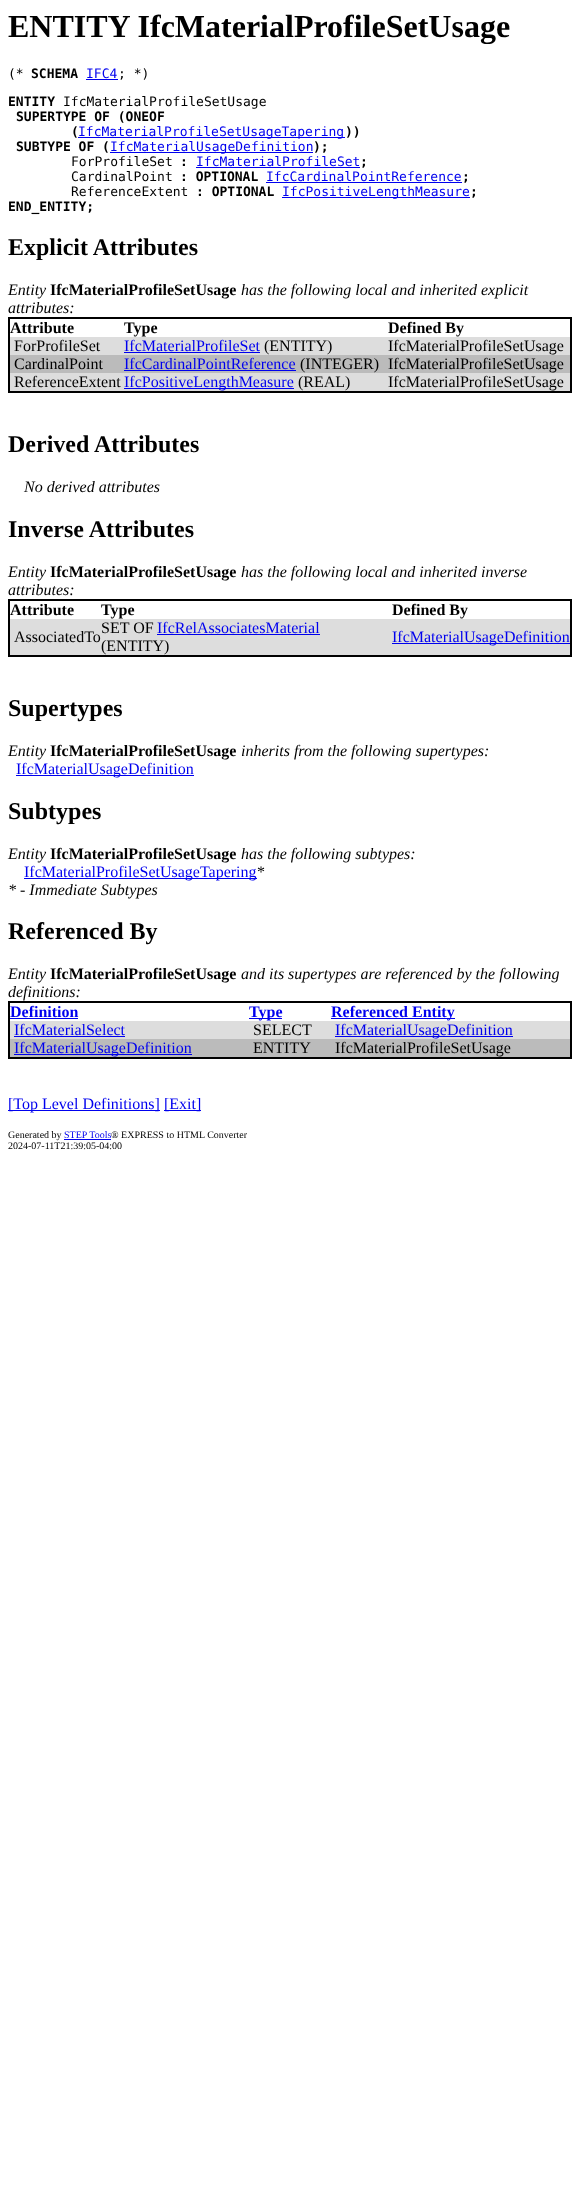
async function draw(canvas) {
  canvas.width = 580
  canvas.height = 2208
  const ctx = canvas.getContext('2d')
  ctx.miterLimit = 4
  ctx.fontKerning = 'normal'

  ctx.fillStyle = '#fff'
  ctx.fillRect(0, 0, 580, 2208)
  ctx.font = 'bold 32px Liberation Serif'
  ctx.fillStyle = '#000'
  ctx.fillText('ENTITY IfcMaterialProfileSetUsage', 8, 37)
  ctx.font = '13px DejaVu Sans Mono'
  ctx.fillText('(*', 8, 78)
  ctx.font = 'bold 13px DejaVu Sans Mono'
  ctx.fillText('SCHEMA', 31, 78)
  ctx.font = '13px DejaVu Sans Mono'
  ctx.fillStyle = '#00e'
  ctx.fillText('IFC4', 86, 78)
  ctx.fillRect(86, 79, 32, 1)
  ctx.fillStyle = '#000'
  ctx.fillText('; *)', 118, 78)
  ctx.font = 'bold 13px DejaVu Sans Mono'
  ctx.fillText('ENTITY', 8, 106)
  ctx.font = '13px DejaVu Sans Mono'
  ctx.fillText('IfcMaterialProfileSetUsage', 63, 106)
  ctx.font = 'bold 13px DejaVu Sans Mono'
  ctx.fillText('SUPERTYPE OF (ONEOF', 16, 121)
  ctx.fillText('(', 71, 136)
  ctx.fillStyle = '#00e'
  ctx.fillRect(78, 137, 267, 1)
  ctx.font = '13px DejaVu Sans Mono'
  ctx.fillText('IfcMaterialProfileSetUsageTapering', 78, 136)
  ctx.font = 'bold 13px DejaVu Sans Mono'
  ctx.fillStyle = '#000'
  ctx.fillText('))', 345, 136)
  ctx.fillText('SUBTYPE OF (', 16, 151)
  ctx.fillStyle = '#00e'
  ctx.fillRect(110, 152, 203, 1)
  ctx.font = '13px DejaVu Sans Mono'
  ctx.fillText('IfcMaterialUsageDefinition', 110, 151)
  ctx.font = 'bold 13px DejaVu Sans Mono'
  ctx.fillStyle = '#000'
  ctx.fillText(');', 313, 151)
  ctx.font = '13px DejaVu Sans Mono'
  ctx.fillText('ForProfileSet', 71, 166)
  ctx.font = 'bold 13px DejaVu Sans Mono'
  ctx.fillText(':', 180, 166)
  ctx.font = '13px DejaVu Sans Mono'
  ctx.fillStyle = '#00e'
  ctx.fillText('IfcMaterialProfileSet', 196, 166)
  ctx.fillRect(196, 167, 164, 1)
  ctx.font = 'bold 13px DejaVu Sans Mono'
  ctx.fillStyle = '#000'
  ctx.fillText(';', 360, 166)
  ctx.font = '13px DejaVu Sans Mono'
  ctx.fillText('CardinalPoint', 71, 181)
  ctx.font = 'bold 13px DejaVu Sans Mono'
  ctx.fillText(': OPTIONAL', 180, 181)
  ctx.font = '13px DejaVu Sans Mono'
  ctx.fillStyle = '#00e'
  ctx.fillText('IfcCardinalPointReference', 266, 181)
  ctx.fillRect(266, 182, 196, 1)
  ctx.font = 'bold 13px DejaVu Sans Mono'
  ctx.fillStyle = '#000'
  ctx.fillText(';', 462, 181)
  ctx.font = '13px DejaVu Sans Mono'
  ctx.fillText('ReferenceExtent', 71, 196)
  ctx.font = 'bold 13px DejaVu Sans Mono'
  ctx.fillText(': OPTIONAL', 196, 196)
  ctx.fillStyle = '#00e'
  ctx.fillRect(282, 197, 188, 1)
  ctx.font = '13px DejaVu Sans Mono'
  ctx.fillText('IfcPositiveLengthMeasure', 282, 196)
  ctx.font = 'bold 13px DejaVu Sans Mono'
  ctx.fillStyle = '#000'
  ctx.fillText(';', 470, 196)
  ctx.fillText('END_ENTITY;', 8, 211)
  ctx.font = 'bold 24px Liberation Serif'
  ctx.fillText('Explicit Attributes', 8, 255)
  ctx.font = 'italic 16px Liberation Serif'
  ctx.fillText('Entity', 8, 295)
  ctx.font = 'bold 16px Liberation Serif'
  ctx.fillText('IfcMaterialProfileSetUsage', 50, 295)
  ctx.font = 'italic 16px Liberation Serif'
  ctx.fillText('has the following local and inherited explicit', 241, 295)
  ctx.fillText('attributes:', 8, 313)
  ctx.fillRect(8, 317, 564, 76)
  ctx.fillStyle = '#fff'
  ctx.fillRect(10, 319, 560, 18)
  ctx.font = 'bold 16px Liberation Serif'
  ctx.fillStyle = '#000'
  ctx.fillText('Attribute', 10, 333)
  ctx.fillText('Type', 124, 333)
  ctx.fillText('Defined By', 388, 333)
  ctx.fillStyle = '#ddd'
  ctx.fillRect(10, 337, 560, 18)
  ctx.font = '16px Liberation Serif'
  ctx.fillStyle = '#000'
  ctx.fillText('ForProfileSet', 14, 351)
  ctx.fillStyle = '#00e'
  ctx.fillText('IfcMaterialProfileSet', 124, 351)
  ctx.fillRect(124, 352, 136, 1)
  ctx.fillStyle = '#000'
  ctx.fillText('(ENTITY)', 264, 351)
  ctx.fillText('IfcMaterialProfileSetUsage', 388, 351)
  ctx.fillStyle = '#bbb'
  ctx.fillRect(10, 355, 560, 18)
  ctx.fillStyle = '#000'
  ctx.fillText('CardinalPoint', 14, 369)
  ctx.fillStyle = '#00e'
  ctx.fillText('IfcCardinalPointReference', 124, 369)
  ctx.fillRect(124, 370, 172, 1)
  ctx.fillStyle = '#000'
  ctx.fillText('(INTEGER)', 300, 369)
  ctx.fillText('IfcMaterialProfileSetUsage', 388, 369)
  ctx.fillStyle = '#ddd'
  ctx.fillRect(10, 373, 560, 18)
  ctx.fillStyle = '#000'
  ctx.fillText('ReferenceExtent', 14, 387)
  ctx.fillStyle = '#00e'
  ctx.fillRect(124, 388, 170, 1)
  ctx.fillText('IfcPositiveLengthMeasure', 124, 387)
  ctx.fillStyle = '#000'
  ctx.fillText('(REAL)', 298, 387)
  ctx.fillText('IfcMaterialProfileSetUsage', 388, 387)
  ctx.font = 'bold 24px Liberation Serif'
  ctx.fillText('Derived Attributes', 8, 452)
  ctx.font = 'italic 16px Liberation Serif'
  ctx.fillText('No derived attributes', 24, 492)
  ctx.font = 'bold 24px Liberation Serif'
  ctx.fillText('Inverse Attributes', 8, 537)
  ctx.font = 'italic 16px Liberation Serif'
  ctx.fillText('Entity', 8, 577)
  ctx.font = 'bold 16px Liberation Serif'
  ctx.fillText('IfcMaterialProfileSetUsage', 50, 577)
  ctx.font = 'italic 16px Liberation Serif'
  ctx.fillText('has the following local and inherited inverse', 241, 577)
  ctx.fillText('attributes:', 8, 595)
  ctx.fillRect(8, 599, 564, 58)
  ctx.fillStyle = '#fff'
  ctx.fillRect(10, 601, 560, 18)
  ctx.font = 'bold 16px Liberation Serif'
  ctx.fillStyle = '#000'
  ctx.fillText('Attribute', 10, 615)
  ctx.fillText('Type', 101, 615)
  ctx.fillText('Defined By', 392, 615)
  ctx.fillStyle = '#ddd'
  ctx.fillRect(10, 619, 560, 36)
  ctx.font = '16px Liberation Serif'
  ctx.fillStyle = '#000'
  ctx.fillText('AssociatedTo', 14, 642)
  ctx.fillText('SET OF', 101, 633)
  ctx.fillStyle = '#00e'
  ctx.fillText('IfcRelAssociatesMaterial', 157, 633)
  ctx.fillRect(157, 634, 163, 1)
  ctx.fillStyle = '#000'
  ctx.fillText('(ENTITY)', 101, 651)
  ctx.fillStyle = '#00e'
  ctx.fillRect(392, 643, 178, 1)
  ctx.fillText('IfcMaterialUsageDefinition', 392, 642)
  ctx.font = 'bold 24px Liberation Serif'
  ctx.fillStyle = '#000'
  ctx.fillText('Supertypes', 8, 716)
  ctx.font = 'italic 16px Liberation Serif'
  ctx.fillText('Entity', 8, 756)
  ctx.font = 'bold 16px Liberation Serif'
  ctx.fillText('IfcMaterialProfileSetUsage', 50, 756)
  ctx.font = 'italic 16px Liberation Serif'
  ctx.fillText('inherits from the following supertypes:', 241, 756)
  ctx.fillStyle = '#00e'
  ctx.fillRect(16, 775, 178, 1)
  ctx.font = '16px Liberation Serif'
  ctx.fillText('IfcMaterialUsageDefinition', 16, 774)
  ctx.font = 'bold 24px Liberation Serif'
  ctx.fillStyle = '#000'
  ctx.fillText('Subtypes', 8, 819)
  ctx.font = 'italic 16px Liberation Serif'
  ctx.fillText('Entity', 8, 859)
  ctx.font = 'bold 16px Liberation Serif'
  ctx.fillText('IfcMaterialProfileSetUsage', 50, 859)
  ctx.font = 'italic 16px Liberation Serif'
  ctx.fillText('has the following subtypes:', 241, 859)
  ctx.fillStyle = '#00e'
  ctx.fillRect(24, 878, 233, 1)
  ctx.font = '16px Liberation Serif'
  ctx.fillText('IfcMaterialProfileSetUsageTapering', 24, 877)
  ctx.fillStyle = '#000'
  ctx.fillText('*', 257, 877)
  ctx.font = 'italic 16px Liberation Serif'
  ctx.fillText('* - Immediate Subtypes', 8, 895)
  ctx.font = 'bold 24px Liberation Serif'
  ctx.fillText('Referenced By', 8, 939)
  ctx.font = 'italic 16px Liberation Serif'
  ctx.fillText('Entity', 8, 979)
  ctx.font = 'bold 16px Liberation Serif'
  ctx.fillText('IfcMaterialProfileSetUsage', 50, 979)
  ctx.font = 'italic 16px Liberation Serif'
  ctx.fillText('and its supertypes are referenced by the following', 241, 979)
  ctx.fillText('definitions:', 8, 997)
  ctx.fillRect(8, 1001, 564, 58)
  ctx.fillStyle = '#fff'
  ctx.fillRect(10, 1003, 560, 18)
  ctx.font = 'bold 16px Liberation Serif'
  ctx.fillStyle = '#00e'
  ctx.fillText('Definition', 10, 1017)
  ctx.fillRect(10, 1018, 68, 1)
  ctx.fillRect(249, 1018, 33, 1)
  ctx.fillText('Type', 249, 1017)
  ctx.fillRect(331, 1018, 124, 1)
  ctx.fillText('Referenced Entity', 331, 1017)
  ctx.fillStyle = '#ddd'
  ctx.fillRect(10, 1021, 560, 18)
  ctx.font = '16px Liberation Serif'
  ctx.fillStyle = '#00e'
  ctx.fillText('IfcMaterialSelect', 14, 1035)
  ctx.fillRect(14, 1036, 111, 1)
  ctx.fillStyle = '#000'
  ctx.fillText('SELECT', 253, 1035)
  ctx.fillStyle = '#00e'
  ctx.fillRect(335, 1036, 178, 1)
  ctx.fillText('IfcMaterialUsageDefinition', 335, 1035)
  ctx.fillStyle = '#bbb'
  ctx.fillRect(10, 1039, 560, 18)
  ctx.fillStyle = '#00e'
  ctx.fillRect(14, 1054, 178, 1)
  ctx.fillText('IfcMaterialUsageDefinition', 14, 1053)
  ctx.fillStyle = '#000'
  ctx.fillText('ENTITY', 253, 1053)
  ctx.fillText('IfcMaterialProfileSetUsage', 335, 1053)
  ctx.fillStyle = '#00e'
  ctx.fillRect(8, 1110, 152, 1)
  ctx.fillText('[Top Level Definitions]', 8, 1109)
  ctx.fillRect(164, 1110, 37, 1)
  ctx.fillText('[Exit]', 164, 1109)
  ctx.font = '10px Liberation Serif'
  ctx.fillStyle = '#000'
  ctx.fillText('Generated by', 8, 1138)
  ctx.fillStyle = '#00e'
  ctx.fillRect(64, 1139, 47, 1)
  ctx.fillText('STEP Tools', 64, 1138)
  ctx.fillStyle = '#000'
  ctx.fillText('® EXPRESS to HTML Converter', 111, 1138)
  ctx.fillText('2024-07-11T21:39:05-04:00', 8, 1149)
}

draw(document.querySelector('canvas'))
